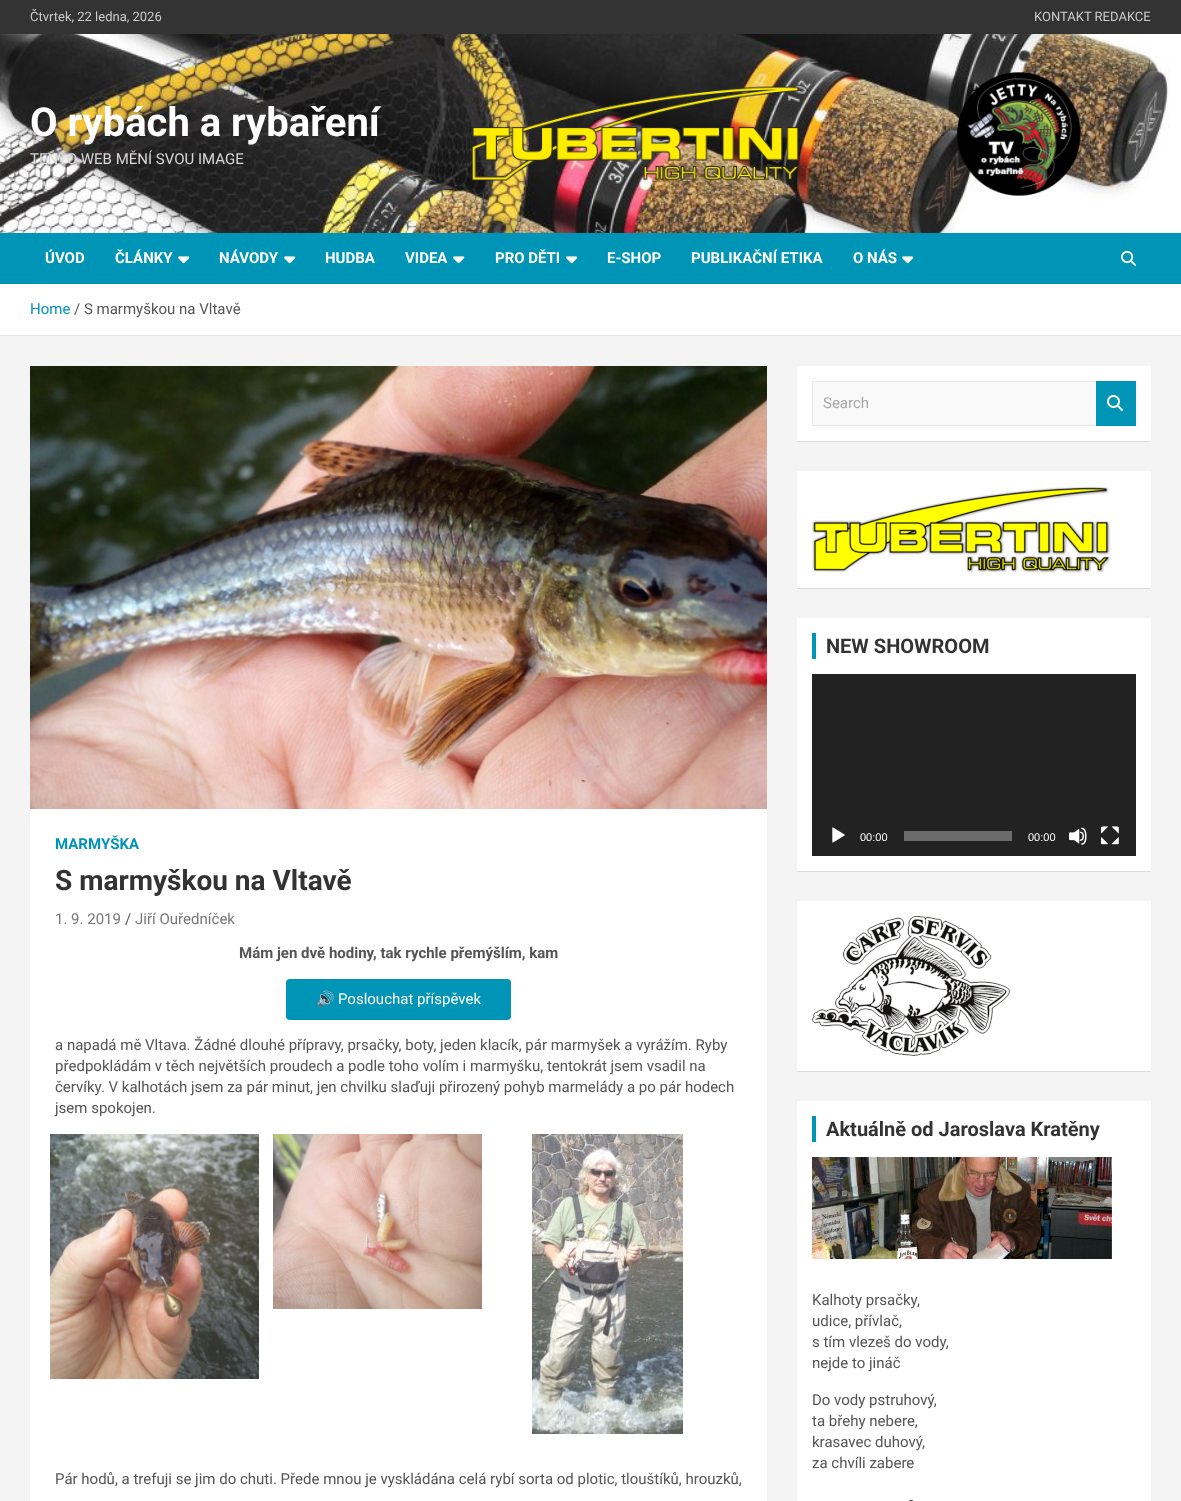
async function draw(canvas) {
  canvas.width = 1181
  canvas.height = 1501
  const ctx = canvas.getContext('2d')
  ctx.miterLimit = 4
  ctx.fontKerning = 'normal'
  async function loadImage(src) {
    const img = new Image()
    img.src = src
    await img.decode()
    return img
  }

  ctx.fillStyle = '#f4f4f4'
  ctx.fillRect(0, 0, 1181, 1501)
  ctx.fillStyle = '#333'
  ctx.fillRect(0, 0, 1181, 34)
  ctx.font = '13px Roboto'
  ctx.fillStyle = '#ccc'
  ctx.fillText('Čtvrtek, 22 ledna, 2026', 30, 21)
  ctx.fillText('KONTAKT REDAKCE', 1034, 21)
  ctx.fillStyle = '#fff'
  ctx.fillRect(1171, 34, 10, 199)
  ctx.drawImage(await loadImage('image0.png'), 0, 34, 1171, 199)
  ctx.font = 'bold 40px Roboto'
  ctx.fillText('O rybách a rybaření', 30, 136)
  ctx.font = '15px Roboto'
  ctx.fillStyle = '#d9d9d9'
  ctx.fillText('TENTO WEB MĚNÍ SVOU IMAGE', 30, 164)
  ctx.drawImage(await loadImage('image1.png'), 471, 72, 610, 124)
  ctx.fillStyle = '#0095b6'
  ctx.fillRect(0, 233, 1181, 51)
  ctx.font = 'bold 15px Roboto'
  ctx.fillStyle = '#fff'
  ctx.fillText('ÚVOD', 45, 263)
  ctx.fillText('ČLÁNKY', 115, 263)
  ctx.drawImage(await loadImage('image2.png'), 178, 256, 12, 8)
  ctx.fillText('NÁVODY', 219, 263)
  ctx.drawImage(await loadImage('image2.png'), 284, 256, 12, 8)
  ctx.fillText('HUDBA', 325, 263)
  ctx.fillText('VIDEA', 405, 263)
  ctx.drawImage(await loadImage('image2.png'), 453, 256, 12, 8)
  ctx.fillText('PRO DĚTI', 495, 263)
  ctx.drawImage(await loadImage('image2.png'), 566, 256, 12, 8)
  ctx.fillText('E-SHOP', 607, 263)
  ctx.fillText('PUBLIKAČNÍ ETIKA', 691, 263)
  ctx.fillText('O NÁS', 853, 263)
  ctx.drawImage(await loadImage('image2.png'), 902, 256, 12, 8)
  ctx.drawImage(await loadImage('image3.png'), 1121, 250, 15, 16)
  ctx.fillRect(0, 284, 1181, 51)
  ctx.fillStyle = '#e6e6e6'
  ctx.fillRect(0, 335, 1181, 1)
  ctx.font = '15px Roboto'
  ctx.fillStyle = '#0095b6'
  ctx.fillText('Home', 30, 314)
  ctx.fillStyle = '#555'
  ctx.fillText('/ S marmyškou na Vltavě', 74, 314)
  ctx.fillStyle = '#fff'
  ctx.fillRect(30, 809, 737, 692)
  ctx.drawImage(await loadImage('image4.png'), 30, 366, 737, 443)
  ctx.font = 'bold 15px Roboto'
  ctx.fillStyle = '#0095b6'
  ctx.fillText('MARMYŠKA', 55, 849)
  ctx.font = 'bold 28px Roboto'
  ctx.fillStyle = '#333'
  ctx.fillText('S marmyškou na Vltavě', 55, 890)
  ctx.font = '15px Roboto'
  ctx.fillStyle = '#777'
  ctx.fillText('1. 9. 2019', 55, 924)
  ctx.fillStyle = '#555'
  ctx.fillText('/', 125, 924)
  ctx.fillStyle = '#777'
  ctx.fillText('Jiří Ouředníček', 135, 924)
  ctx.font = 'bold 15px Roboto'
  ctx.fillStyle = '#555'
  ctx.fillText('Mám jen dvě hodiny, tak rychle přemýšlím, kam', 239, 958)
  ctx.fillStyle = '#0095b6'
  ctx.beginPath()
  ctx.roundRect(286, 979, 225, 41, 4)
  ctx.fill()
  ctx.font = '15px Noto Color Emoji'
  ctx.fillStyle = '#fff'
  ctx.fillText('🔊', 316, 1004)
  ctx.font = '15px Roboto'
  ctx.fillText('Poslouchat příspěvek', 338, 1004)
  ctx.fillStyle = '#555'
  ctx.fillText('a napadá mě Vltava. Žádné dlouhé přípravy, prsačky, boty, jeden klacík, pár marmyšek a vyrážím. Ryby', 55, 1050)
  ctx.fillText('předpokládám v těch největších proudech a podle toho volím i marmyšku, tentokrát jsem vsadil na', 55, 1071)
  ctx.fillText('červíky. V kalhotách jsem za pár minut, jen chvilku slaďuji přirozený pohyb marmelády a po pár hodech', 55, 1092)
  ctx.fillText('jsem spokojen.', 55, 1113)
  ctx.drawImage(await loadImage('image5.png'), 50, 1134, 209, 245)
  ctx.drawImage(await loadImage('image6.png'), 273, 1134, 209, 175)
  ctx.drawImage(await loadImage('image7.png'), 532, 1134, 151, 300)
  ctx.fillText('Pár hodů, a trefuji se jim do chuti. Přede mnou je vyskládána celá rybí sorta od plotic, tlouštíků, hrouzků,', 55, 1484)
  ctx.fillStyle = '#0000001a'
  ctx.filter = 'blur(0.5px)'
  ctx.beginPath()
  ctx.rect(797, 367, 354, 75)
  ctx.fill()
  ctx.filter = 'none'
  ctx.fillStyle = '#fff'
  ctx.fillRect(797, 366, 354, 75)
  ctx.fillStyle = '#f9f9f9'
  ctx.fillRect(813, 382, 283, 43)
  ctx.fillStyle = '#e8e8e8'
  ctx.beginPath()
  ctx.moveTo(812, 381)
  ctx.lineTo(1096, 381)
  ctx.lineTo(1096, 382)
  ctx.lineTo(813, 382)
  ctx.closePath()
  ctx.fill()
  ctx.beginPath()
  ctx.moveTo(1096, 426)
  ctx.lineTo(812, 426)
  ctx.lineTo(813, 425)
  ctx.lineTo(1096, 425)
  ctx.closePath()
  ctx.fill()
  ctx.fillStyle = '#00000017'
  ctx.beginPath()
  ctx.moveTo(812, 426)
  ctx.lineTo(812, 381)
  ctx.lineTo(813, 382)
  ctx.lineTo(813, 425)
  ctx.closePath()
  ctx.fill()
  ctx.fillStyle = '#a7a7a7'
  ctx.fillText('Search', 823, 408)
  ctx.fillStyle = '#0095b6'
  ctx.fillRect(1096, 381, 40, 45)
  ctx.drawImage(await loadImage('image8.png'), 1107, 395, 16, 16)
  ctx.fillStyle = '#0000001a'
  ctx.filter = 'blur(0.5px)'
  ctx.beginPath()
  ctx.rect(797, 472, 354, 117)
  ctx.fill()
  ctx.filter = 'none'
  ctx.fillStyle = '#fff'
  ctx.fillRect(797, 471, 354, 117)
  ctx.drawImage(await loadImage('image9.png'), 812, 486, 299, 87)
  ctx.fillStyle = '#0000001a'
  ctx.filter = 'blur(0.5px)'
  ctx.beginPath()
  ctx.rect(797, 619, 354, 253)
  ctx.fill()
  ctx.filter = 'none'
  ctx.fillStyle = '#fff'
  ctx.fillRect(797, 618, 354, 253)
  ctx.fillStyle = '#0095b6'
  ctx.fillRect(812, 633, 4, 26)
  ctx.font = 'bold 20px Roboto'
  ctx.fillStyle = '#333'
  ctx.fillText('NEW SHOWROOM', 826, 653)
  ctx.fillStyle = '#222'
  ctx.fillRect(812, 674, 324, 182)
  ctx.drawImage(await loadImage('image10.png'), 832, 827, 13, 16)
  ctx.font = '11px Liberation Sans'
  ctx.fillStyle = '#fff'
  ctx.fillText('00:00', 860, 841)
  ctx.fillStyle = '#6b6b6b'
  ctx.fillRect(904, 831, 108, 10)
  ctx.fillStyle = '#fff'
  ctx.fillText('00:00', 1028, 841)
  ctx.drawImage(await loadImage('image11.png'), 1069, 827, 18, 18)
  ctx.drawImage(await loadImage('image12.png'), 1101, 826, 18, 19)
  ctx.fillStyle = '#0000001a'
  ctx.filter = 'blur(0.5px)'
  ctx.beginPath()
  ctx.rect(797, 902, 354, 170)
  ctx.fill()
  ctx.filter = 'none'
  ctx.fillStyle = '#fff'
  ctx.fillRect(797, 901, 354, 170)
  ctx.drawImage(await loadImage('image13.png'), 812, 916, 198, 140)
  ctx.fillRect(797, 1101, 354, 400)
  ctx.fillStyle = '#0095b6'
  ctx.fillRect(812, 1116, 4, 26)
  ctx.font = 'bold 20px Roboto'
  ctx.fillStyle = '#333'
  ctx.fillText('Aktuálně od Jaroslava Kratěny', 826, 1136)
  ctx.drawImage(await loadImage('image14.png'), 812, 1157, 300, 102)
  ctx.font = '15px Roboto'
  ctx.fillStyle = '#555'
  ctx.fillText('Kalhoty prsačky,', 812, 1305)
  ctx.fillText('udice, přívlač,', 812, 1326)
  ctx.fillText('s tím vlezeš do vody,', 812, 1347)
  ctx.fillText('nejde to jináč', 812, 1368)
  ctx.fillText('Do vody pstruhový,', 812, 1405)
  ctx.fillText('ta břehy nebere,', 812, 1426)
  ctx.fillText('krasavec duhový,', 812, 1447)
  ctx.fillText('za chvíli zabere', 812, 1468)
  ctx.fillText('-', 909, 1505)
}

draw(document.querySelector('canvas'))
